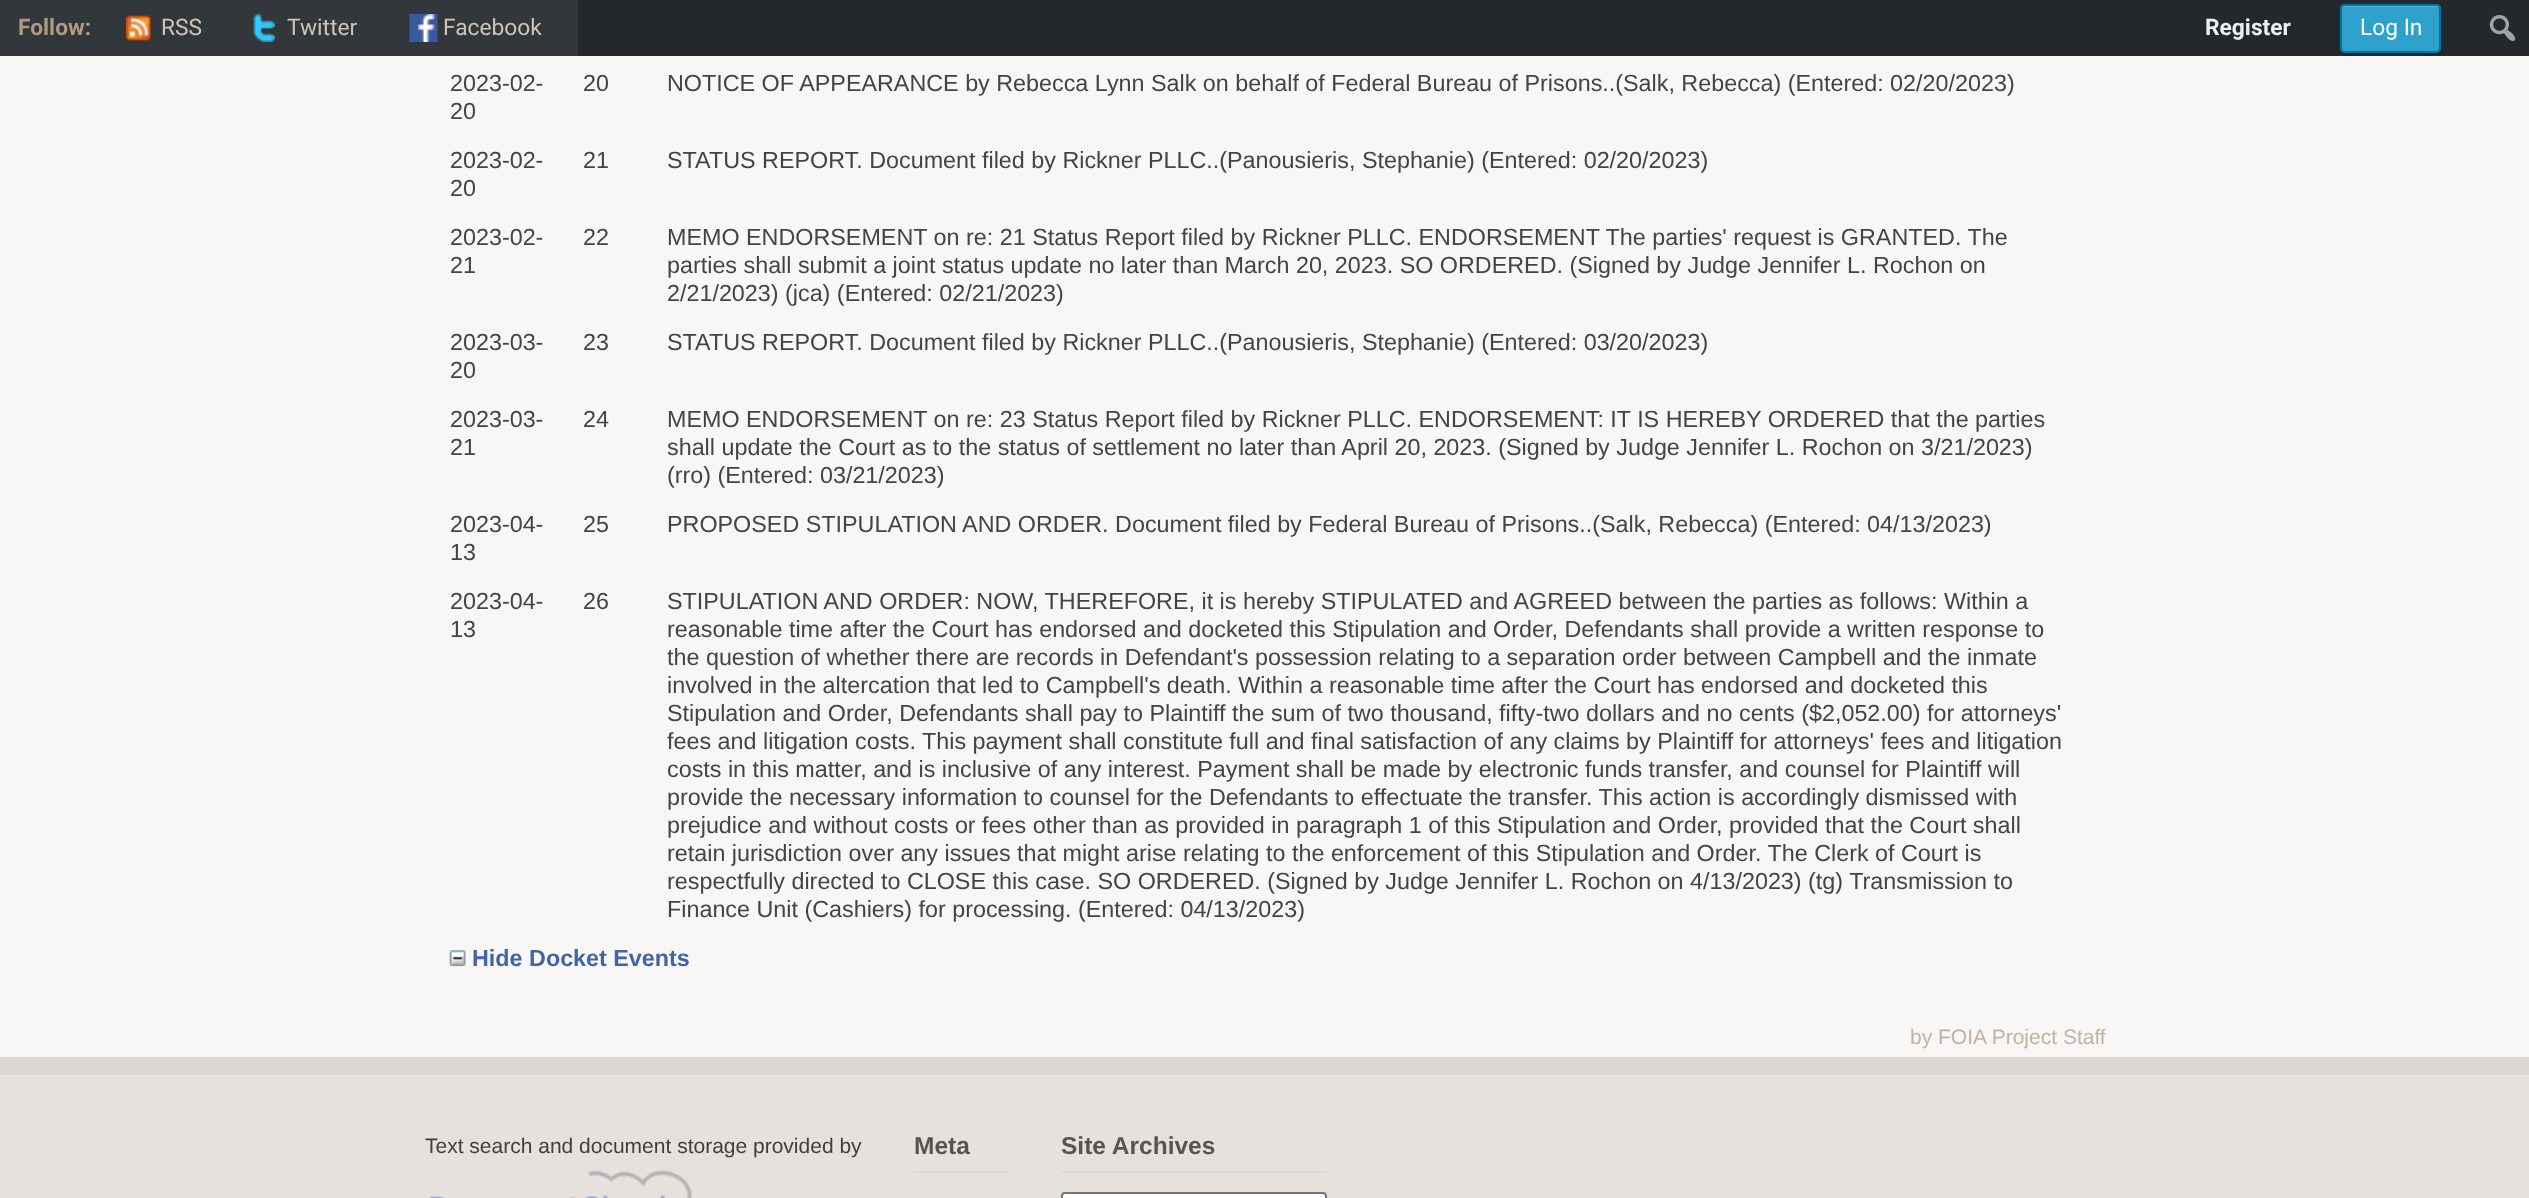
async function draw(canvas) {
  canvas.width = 2529
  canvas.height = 1198
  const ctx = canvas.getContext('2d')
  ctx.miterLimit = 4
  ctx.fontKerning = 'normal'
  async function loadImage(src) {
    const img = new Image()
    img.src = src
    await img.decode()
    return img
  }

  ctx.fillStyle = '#f9f7f5'
  ctx.fillRect(0, 0, 2529, 1198)
  ctx.fillStyle = '#23282d'
  ctx.fillRect(578, 0, 1951, 56)
  ctx.fillStyle = '#32373c'
  ctx.fillRect(0, 0, 578, 56)
  ctx.font = 'bold 22.75px Roboto'
  ctx.fillStyle = '#ad9b83'
  ctx.fillText('Follow:', 18, 35)
  ctx.drawImage(await loadImage('image0.png'), 126, 15, 25, 26)
  ctx.font = '22.75px Roboto'
  ctx.fillStyle = '#cfc4b6'
  ctx.fillText('RSS', 161, 35)
  ctx.drawImage(await loadImage('image1.png'), 253, 14, 22, 28)
  ctx.fillText('Twitter', 287, 35)
  ctx.drawImage(await loadImage('image2.png'), 409, 14, 29, 28)
  ctx.fillText('Facebook', 443, 35)
  ctx.font = 'bold 22.75px Roboto'
  ctx.fillStyle = '#eee'
  ctx.fillText('Register', 2205, 35)
  ctx.fillStyle = '#1e2226'
  ctx.beginPath()
  ctx.moveTo(2340, 49)
  ctx.bezierCurveTo(2340, 58, 2358, 54, 2360, 54)
  ctx.lineTo(2421, 54)
  ctx.bezierCurveTo(2423, 54, 2441, 58, 2441, 49)
  ctx.bezierCurveTo(2440, 51, 2438, 52, 2436, 52)
  ctx.lineTo(2345, 52)
  ctx.bezierCurveTo(2343, 52, 2341, 51, 2340, 49)
  ctx.closePath()
  ctx.fill()
  ctx.fillStyle = '#2ea2cc'
  ctx.beginPath()
  ctx.roundRect(2340, 4, 101, 49, 5)
  ctx.fill()
  ctx.fillStyle = '#53b5d9'
  ctx.beginPath()
  ctx.moveTo(2345, 7)
  ctx.lineTo(2436, 7)
  ctx.bezierCurveTo(2438, 7, 2440, 9, 2440, 10)
  ctx.bezierCurveTo(2440, 1, 2425, 5, 2421, 5)
  ctx.lineTo(2361, 5)
  ctx.bezierCurveTo(2357, 5, 2342, 1, 2342, 10)
  ctx.bezierCurveTo(2342, 9, 2343, 7, 2345, 7)
  ctx.closePath()
  ctx.fill()
  ctx.beginPath()
  ctx.roundRect(2341, 5, 99, 47, 4)
  ctx.strokeStyle = '#0074a2'
  ctx.lineWidth = 2
  ctx.stroke()
  ctx.font = '22.75px Roboto'
  ctx.fillStyle = '#fff'
  ctx.fillText('Log In', 2360, 35)
  ctx.drawImage(await loadImage('image3.png'), 2489, 15, 27, 26)
  ctx.font = '23.33px Liberation Sans'
  ctx.fillStyle = '#444'
  ctx.fillText('2023-02-', 450, 91)
  ctx.fillText('20', 450, 119)
  ctx.fillText('20', 583, 91)
  ctx.fillText('NOTICE OF APPEARANCE by Rebecca Lynn Salk on behalf of Federal Bureau of Prisons..(Salk, Rebecca) (Entered: 02/20/2023)', 667, 91)
  ctx.fillText('2023-02-', 450, 168)
  ctx.fillText('20', 450, 196)
  ctx.fillText('21', 583, 168)
  ctx.fillText('STATUS REPORT. Document filed by Rickner PLLC..(Panousieris, Stephanie) (Entered: 02/20/2023)', 667, 168)
  ctx.fillText('2023-02-', 450, 245)
  ctx.fillText('21', 450, 273)
  ctx.fillText('22', 583, 245)
  ctx.fillText('MEMO ENDORSEMENT on re: 21 Status Report filed by Rickner PLLC. ENDORSEMENT The parties\' request is GRANTED. The', 667, 245)
  ctx.fillText('parties shall submit a joint status update no later than March 20, 2023. SO ORDERED. (Signed by Judge Jennifer L. Rochon on', 667, 273)
  ctx.fillText('2/21/2023) (jca) (Entered: 02/21/2023)', 667, 301)
  ctx.fillText('2023-03-', 450, 350)
  ctx.fillText('20', 450, 378)
  ctx.fillText('23', 583, 350)
  ctx.fillText('STATUS REPORT. Document filed by Rickner PLLC..(Panousieris, Stephanie) (Entered: 03/20/2023)', 667, 350)
  ctx.fillText('2023-03-', 450, 427)
  ctx.fillText('21', 450, 455)
  ctx.fillText('24', 583, 427)
  ctx.fillText('MEMO ENDORSEMENT on re: 23 Status Report filed by Rickner PLLC. ENDORSEMENT: IT IS HEREBY ORDERED that the parties', 667, 427)
  ctx.fillText('shall update the Court as to the status of settlement no later than April 20, 2023. (Signed by Judge Jennifer L. Rochon on 3/21/2023)', 667, 455)
  ctx.fillText('(rro) (Entered: 03/21/2023)', 667, 483)
  ctx.fillText('2023-04-', 450, 532)
  ctx.fillText('13', 450, 560)
  ctx.fillText('25', 583, 532)
  ctx.fillText('PROPOSED STIPULATION AND ORDER. Document filed by Federal Bureau of Prisons..(Salk, Rebecca) (Entered: 04/13/2023)', 667, 532)
  ctx.fillText('2023-04-', 450, 609)
  ctx.fillText('13', 450, 637)
  ctx.fillText('26', 583, 609)
  ctx.fillText('STIPULATION AND ORDER: NOW, THEREFORE, it is hereby STIPULATED and AGREED between the parties as follows: Within a', 667, 609)
  ctx.fillText('reasonable time after the Court has endorsed and docketed this Stipulation and Order, Defendants shall provide a written response to', 667, 637)
  ctx.fillText('the question of whether there are records in Defendant\'s possession relating to a separation order between Campbell and the inmate', 667, 665)
  ctx.fillText('involved in the altercation that led to Campbell\'s death. Within a reasonable time after the Court has endorsed and docketed this', 667, 693)
  ctx.fillText('Stipulation and Order, Defendants shall pay to Plaintiff the sum of two thousand, fifty-two dollars and no cents ($2,052.00) for attorneys\'', 667, 721)
  ctx.fillText('fees and litigation costs. This payment shall constitute full and final satisfaction of any claims by Plaintiff for attorneys\' fees and litigation', 667, 749)
  ctx.fillText('costs in this matter, and is inclusive of any interest. Payment shall be made by electronic funds transfer, and counsel for Plaintiff will', 667, 777)
  ctx.fillText('provide the necessary information to counsel for the Defendants to effectuate the transfer. This action is accordingly dismissed with', 667, 805)
  ctx.fillText('prejudice and without costs or fees other than as provided in paragraph 1 of this Stipulation and Order, provided that the Court shall', 667, 833)
  ctx.fillText('retain jurisdiction over any issues that might arise relating to the enforcement of this Stipulation and Order. The Clerk of Court is', 667, 861)
  ctx.fillText('respectfully directed to CLOSE this case. SO ORDERED. (Signed by Judge Jennifer L. Rochon on 4/13/2023) (tg) Transmission to', 667, 889)
  ctx.fillText('Finance Unit (Cashiers) for processing. (Entered: 04/13/2023)', 667, 917)
  ctx.drawImage(await loadImage('image4.png'), 449, 950, 17, 16)
  ctx.font = 'bold 23.33px Liberation Sans'
  ctx.fillStyle = '#4265a7'
  ctx.fillText('Hide Docket Events', 472, 966)
  ctx.font = '21px Liberation Sans'
  ctx.fillStyle = '#c0b2a5'
  ctx.fillText('by FOIA Project Staff', 1910, 1044)
  ctx.fillStyle = '#e7e1de'
  ctx.fillRect(0, 1075, 2529, 123)
  ctx.fillStyle = '#ded6d4'
  ctx.fillRect(0, 1057, 2529, 18)
  ctx.fillStyle = '#413f3e'
  ctx.fillText('Text search and document storage provided by', 425, 1153)
  ctx.drawImage(await loadImage('image5.png'), 429, 1170, 264, 28)
  ctx.fillStyle = '#dfdad5'
  ctx.fillRect(914, 1171, 94, 2)
  ctx.font = 'bold 24.5px Liberation Sans'
  ctx.fillStyle = '#555'
  ctx.fillText('Meta', 914, 1154)
  ctx.fillStyle = '#dfdad5'
  ctx.fillRect(1061, 1171, 266, 2)
  ctx.fillStyle = '#555'
  ctx.fillText('Site Archives', 1061, 1154)
  ctx.fillStyle = '#fff'
  ctx.beginPath()
  ctx.roundRect(1062, 1193, 264, 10, 3)
  ctx.fill()
  ctx.strokeStyle = '#767676'
  ctx.stroke()
}

draw(document.querySelector('canvas'))
